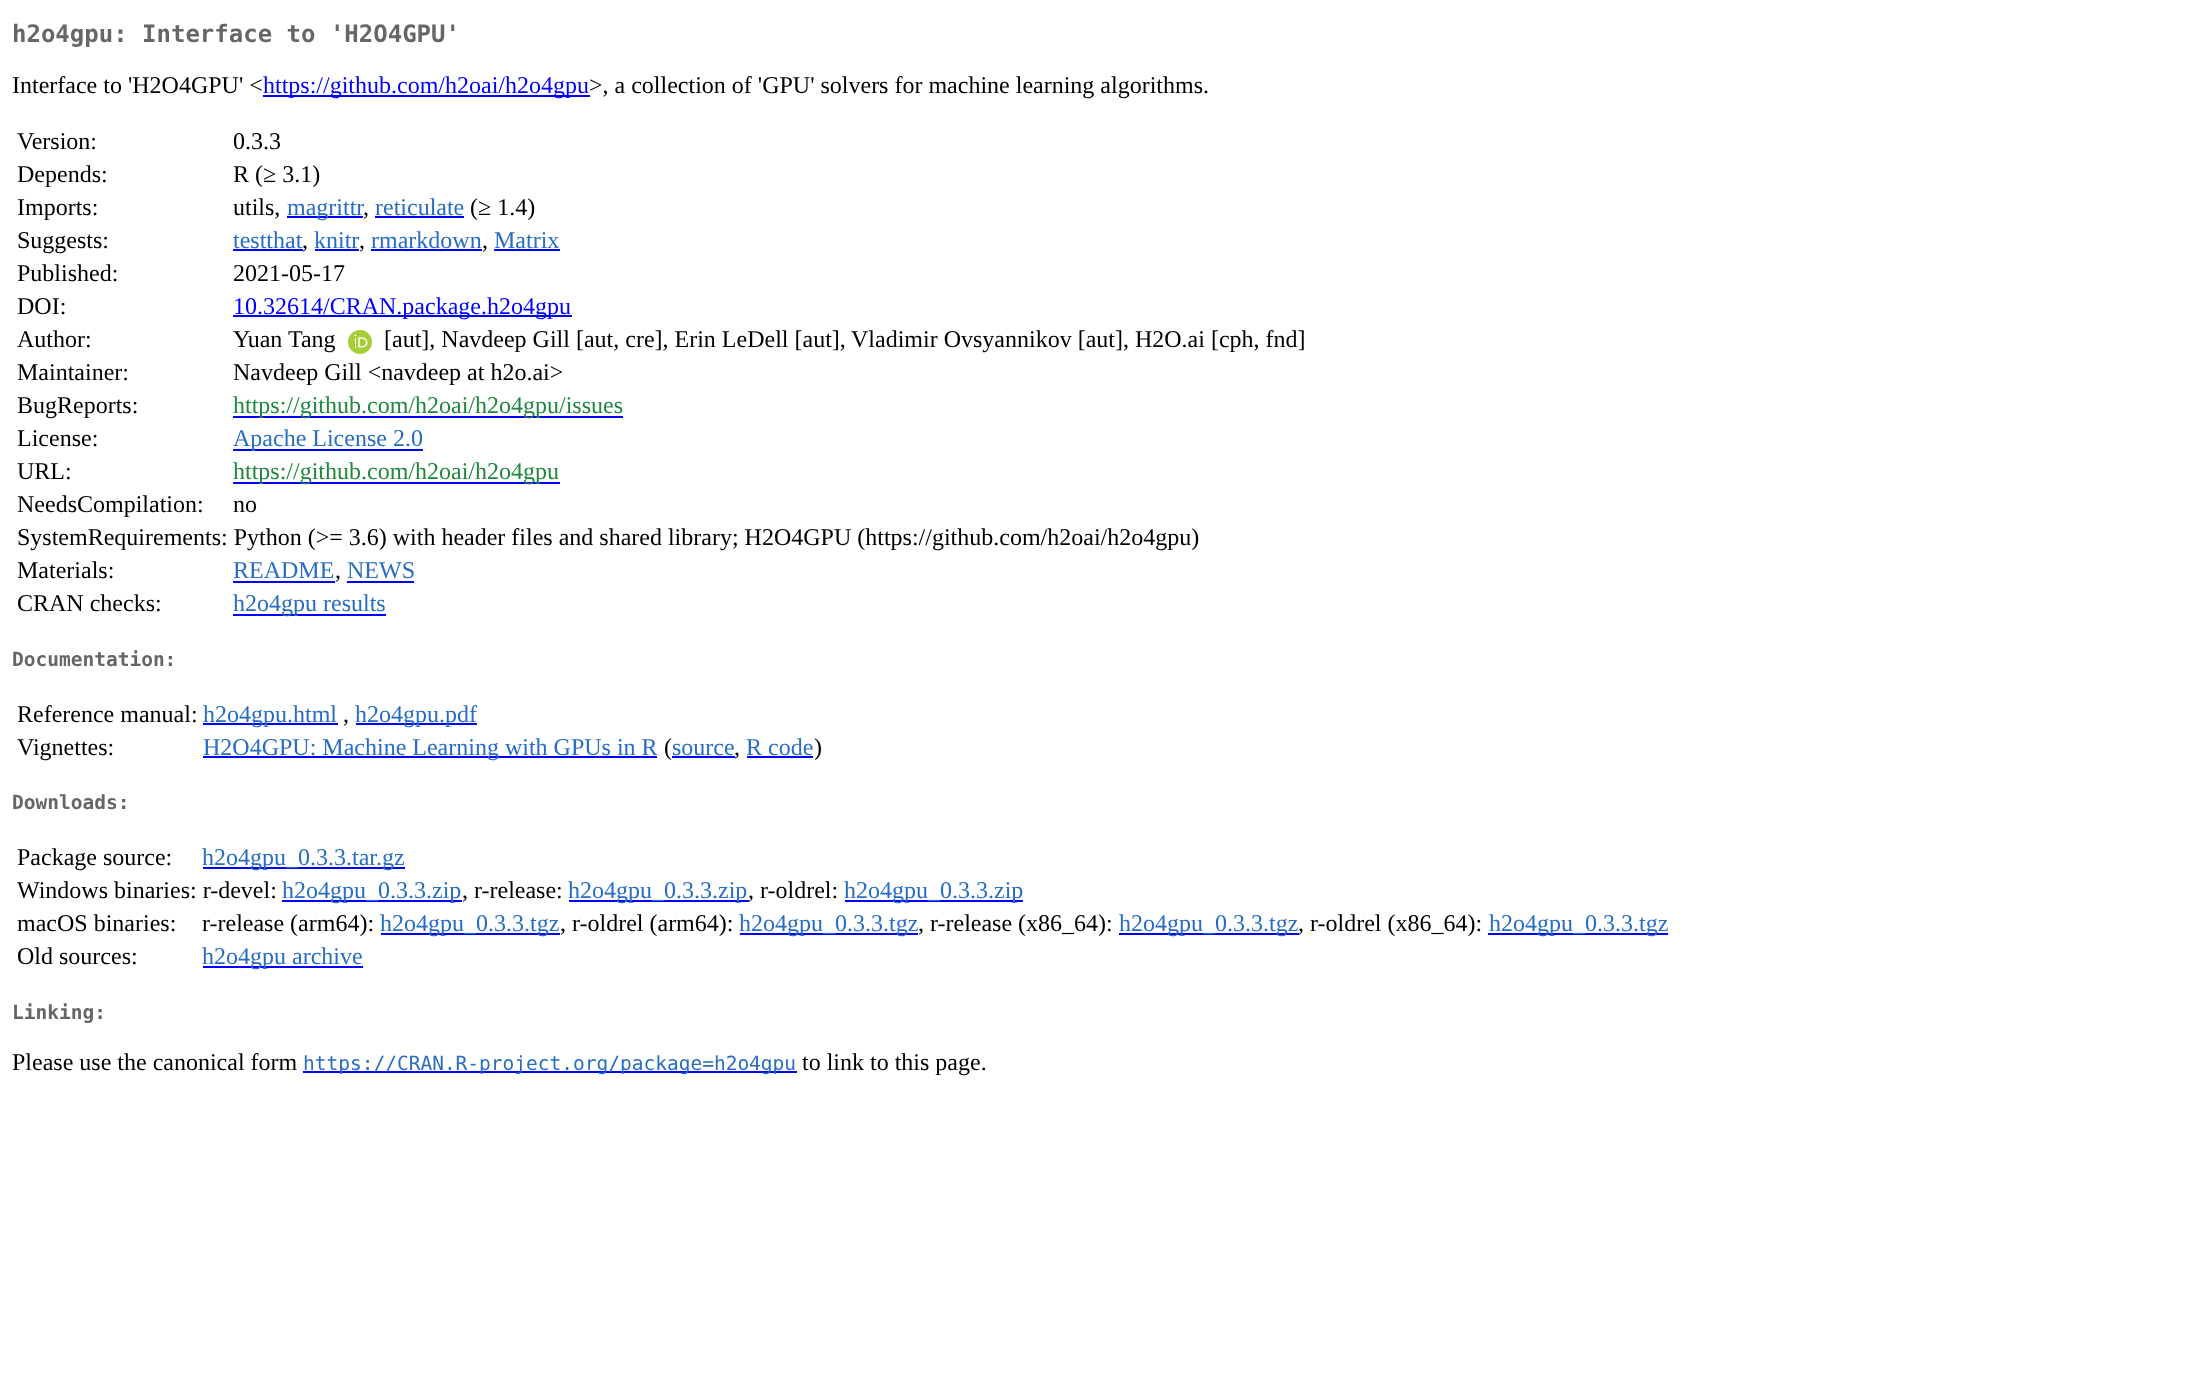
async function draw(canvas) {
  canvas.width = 2188
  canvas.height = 1391
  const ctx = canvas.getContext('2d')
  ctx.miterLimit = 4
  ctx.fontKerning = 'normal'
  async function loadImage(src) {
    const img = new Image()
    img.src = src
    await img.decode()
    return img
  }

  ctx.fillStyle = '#fff'
  ctx.fillRect(0, 0, 2188, 1391)
  ctx.font = 'bold 24px DejaVu Sans Mono'
  ctx.fillStyle = '#666'
  ctx.fillText('h2o4gpu: Interface to \'H2O4GPU\'', 12, 42)
  ctx.font = '24px Liberation Serif'
  ctx.fillStyle = '#000'
  ctx.fillText('Interface to \'H2O4GPU\' <', 12, 93)
  ctx.fillStyle = '#00f'
  ctx.fillRect(263, 95, 327, 2)
  ctx.fillText('https://github.com/h2oai/h2o4gpu', 263, 93)
  ctx.fillStyle = '#000'
  ctx.fillText('>, a collection of \'GPU\' solvers for machine learning algorithms.', 589, 93)
  ctx.fillText('Version:', 17, 149)
  ctx.fillText('0.3.3', 233, 149)
  ctx.fillText('Depends:', 17, 182)
  ctx.fillText('R (≥ 3.1)', 233, 182)
  ctx.fillText('Imports:', 17, 215)
  ctx.fillText('utils,', 233, 215)
  ctx.fillStyle = '#00f'
  ctx.fillRect(287, 216, 76, 2)
  ctx.fillStyle = '#276dc3'
  ctx.fillText('magrittr', 287, 215)
  ctx.fillStyle = '#000'
  ctx.fillText(',', 363, 215)
  ctx.fillStyle = '#276dc3'
  ctx.fillText('reticulate', 375, 215)
  ctx.fillStyle = '#00f'
  ctx.fillRect(375, 216, 89, 2)
  ctx.fillStyle = '#000'
  ctx.fillText('(≥ 1.4)', 470, 215)
  ctx.fillText('Suggests:', 17, 248)
  ctx.fillStyle = '#276dc3'
  ctx.fillText('testthat', 233, 248)
  ctx.fillStyle = '#00f'
  ctx.fillRect(233, 249, 70, 2)
  ctx.fillStyle = '#000'
  ctx.fillText(',', 302, 248)
  ctx.fillStyle = '#276dc3'
  ctx.fillText('knitr', 314, 248)
  ctx.fillStyle = '#00f'
  ctx.fillRect(315, 249, 44, 2)
  ctx.fillStyle = '#000'
  ctx.fillText(',', 359, 248)
  ctx.fillStyle = '#276dc3'
  ctx.fillText('rmarkdown', 371, 248)
  ctx.fillStyle = '#00f'
  ctx.fillRect(371, 249, 111, 2)
  ctx.fillStyle = '#000'
  ctx.fillText(',', 482, 248)
  ctx.fillStyle = '#276dc3'
  ctx.fillText('Matrix', 494, 248)
  ctx.fillStyle = '#00f'
  ctx.fillRect(494, 249, 66, 2)
  ctx.fillStyle = '#000'
  ctx.fillText('Published:', 17, 281)
  ctx.fillText('2021-05-17', 233, 281)
  ctx.fillText('DOI:', 17, 314)
  ctx.fillStyle = '#00f'
  ctx.fillRect(233, 315, 339, 2)
  ctx.fillText('10.32614/CRAN.package.h2o4gpu', 233, 314)
  ctx.fillStyle = '#000'
  ctx.fillText('Author:', 17, 347)
  ctx.fillText('Yuan Tang', 233, 347)
  ctx.drawImage(await loadImage('image0.png'), 348, 330, 24, 24)
  ctx.fillText('[aut], Navdeep Gill [aut, cre], Erin LeDell [aut],', 384, 347)
  ctx.fillText('Vladimir Ovsyannikov [aut], H2O.ai [cph, fnd]', 851, 347)
  ctx.fillText('Maintainer:', 17, 380)
  ctx.fillText('Navdeep Gill <navdeep at h2o.ai>', 233, 380)
  ctx.fillText('BugReports:', 17, 413)
  ctx.fillStyle = '#00f'
  ctx.fillRect(233, 416, 390, 2)
  ctx.fillStyle = '#1f883d'
  ctx.fillText('https://github.com/h2oai/h2o4gpu/issues', 233, 413)
  ctx.fillStyle = '#000'
  ctx.fillText('License:', 17, 446)
  ctx.fillStyle = '#00f'
  ctx.fillRect(233, 449, 190, 2)
  ctx.fillStyle = '#276dc3'
  ctx.fillText('Apache License 2.0', 233, 446)
  ctx.fillStyle = '#000'
  ctx.fillText('URL:', 17, 479)
  ctx.fillStyle = '#00f'
  ctx.fillRect(233, 482, 327, 2)
  ctx.fillStyle = '#1f883d'
  ctx.fillText('https://github.com/h2oai/h2o4gpu', 233, 479)
  ctx.fillStyle = '#000'
  ctx.fillText('NeedsCompilation:', 17, 512)
  ctx.fillText('no', 233, 512)
  ctx.fillText('SystemRequirements: Python (>= 3.6) with header files and shared library; H2O4GPU (https://github.com/h2oai/h2o4gpu)', 17, 545)
  ctx.fillText('Materials:', 17, 578)
  ctx.fillStyle = '#276dc3'
  ctx.fillText('README', 233, 578)
  ctx.fillStyle = '#00f'
  ctx.fillRect(233, 581, 102, 2)
  ctx.fillStyle = '#000'
  ctx.fillText(',', 335, 578)
  ctx.fillStyle = '#276dc3'
  ctx.fillText('NEWS', 347, 578)
  ctx.fillStyle = '#00f'
  ctx.fillRect(347, 581, 67, 2)
  ctx.fillStyle = '#000'
  ctx.fillText('CRAN checks:', 17, 611)
  ctx.fillStyle = '#00f'
  ctx.fillRect(233, 614, 153, 2)
  ctx.fillStyle = '#276dc3'
  ctx.fillText('h2o4gpu results', 233, 611)
  ctx.font = 'bold 19.5px DejaVu Sans Mono'
  ctx.fillStyle = '#666'
  ctx.fillText('Documentation:', 12, 666)
  ctx.font = '24px Liberation Serif'
  ctx.fillStyle = '#000'
  ctx.fillText('Reference manual:', 17, 722)
  ctx.fillStyle = '#00f'
  ctx.fillRect(203, 723, 135, 2)
  ctx.fillStyle = '#276dc3'
  ctx.fillText('h2o4gpu.html', 203, 722)
  ctx.fillStyle = '#000'
  ctx.fillText(',', 343, 722)
  ctx.fillStyle = '#00f'
  ctx.fillRect(356, 723, 121, 2)
  ctx.fillStyle = '#276dc3'
  ctx.fillText('h2o4gpu.pdf', 355, 722)
  ctx.fillStyle = '#000'
  ctx.fillText('Vignettes:', 17, 755)
  ctx.fillStyle = '#00f'
  ctx.fillRect(203, 756, 454, 2)
  ctx.fillStyle = '#276dc3'
  ctx.fillText('H2O4GPU: Machine Learning with GPUs in R', 203, 755)
  ctx.fillStyle = '#000'
  ctx.fillText('(', 664, 755)
  ctx.fillStyle = '#276dc3'
  ctx.fillText('source', 672, 755)
  ctx.fillStyle = '#00f'
  ctx.fillRect(672, 756, 63, 2)
  ctx.fillStyle = '#000'
  ctx.fillText(',', 734, 755)
  ctx.fillStyle = '#276dc3'
  ctx.fillText('R code', 746, 755)
  ctx.fillStyle = '#00f'
  ctx.fillRect(747, 756, 66, 2)
  ctx.fillStyle = '#000'
  ctx.fillText(')', 814, 755)
  ctx.font = 'bold 19.5px DejaVu Sans Mono'
  ctx.fillStyle = '#666'
  ctx.fillText('Downloads:', 12, 809)
  ctx.font = '24px Liberation Serif'
  ctx.fillStyle = '#000'
  ctx.fillText('Package source:', 17, 865)
  ctx.fillStyle = '#00f'
  ctx.fillRect(203, 867, 202, 2)
  ctx.fillStyle = '#276dc3'
  ctx.fillText('h2o4gpu_0.3.3.tar.gz', 202, 865)
  ctx.fillStyle = '#000'
  ctx.fillText('Windows binaries: r-devel:', 17, 898)
  ctx.fillStyle = '#00f'
  ctx.fillRect(282, 900, 180, 2)
  ctx.fillStyle = '#276dc3'
  ctx.fillText('h2o4gpu_0.3.3.zip', 282, 898)
  ctx.fillStyle = '#000'
  ctx.fillText(', r-release:', 462, 898)
  ctx.fillStyle = '#00f'
  ctx.fillRect(569, 900, 180, 2)
  ctx.fillStyle = '#276dc3'
  ctx.fillText('h2o4gpu_0.3.3.zip', 568, 898)
  ctx.fillStyle = '#000'
  ctx.fillText(', r-oldrel:', 748, 898)
  ctx.fillStyle = '#00f'
  ctx.fillRect(845, 900, 178, 2)
  ctx.fillStyle = '#276dc3'
  ctx.fillText('h2o4gpu_0.3.3.zip', 844, 898)
  ctx.fillStyle = '#000'
  ctx.fillText('macOS binaries:', 17, 931)
  ctx.fillText('r-release (arm64):', 202, 931)
  ctx.fillStyle = '#00f'
  ctx.fillRect(381, 933, 179, 2)
  ctx.fillStyle = '#276dc3'
  ctx.fillText('h2o4gpu_0.3.3.tgz', 380, 931)
  ctx.fillStyle = '#000'
  ctx.fillText(', r-oldrel (arm64):', 560, 931)
  ctx.fillStyle = '#00f'
  ctx.fillRect(740, 933, 178, 2)
  ctx.fillStyle = '#276dc3'
  ctx.fillText('h2o4gpu_0.3.3.tgz', 739, 931)
  ctx.fillStyle = '#000'
  ctx.fillText(', r-release (x86_64):', 918, 931)
  ctx.fillStyle = '#00f'
  ctx.fillRect(1119, 933, 180, 2)
  ctx.fillStyle = '#276dc3'
  ctx.fillText('h2o4gpu_0.3.3.tgz', 1119, 931)
  ctx.fillStyle = '#000'
  ctx.fillText(', r-oldrel (x86_64):', 1298, 931)
  ctx.fillStyle = '#00f'
  ctx.fillRect(1488, 933, 180, 2)
  ctx.fillStyle = '#276dc3'
  ctx.fillText('h2o4gpu_0.3.3.tgz', 1489, 931)
  ctx.fillStyle = '#000'
  ctx.fillText('Old sources:', 17, 964)
  ctx.fillStyle = '#00f'
  ctx.fillRect(203, 966, 160, 2)
  ctx.fillStyle = '#276dc3'
  ctx.fillText('h2o4gpu archive', 202, 964)
  ctx.font = 'bold 19.5px DejaVu Sans Mono'
  ctx.fillStyle = '#666'
  ctx.fillText('Linking:', 12, 1019)
  ctx.font = '24px Liberation Serif'
  ctx.fillStyle = '#000'
  ctx.fillText('Please use the canonical form', 12, 1070)
  ctx.fillStyle = '#00f'
  ctx.fillRect(303, 1071, 494, 2)
  ctx.font = '19.5px DejaVu Sans Mono'
  ctx.fillStyle = '#276dc3'
  ctx.fillText('https://CRAN.R-project.org/package=h2o4gpu', 303, 1070)
  ctx.font = '24px Liberation Serif'
  ctx.fillStyle = '#000'
  ctx.fillText('to link to this page.', 802, 1070)
}

draw(document.querySelector('canvas'))
